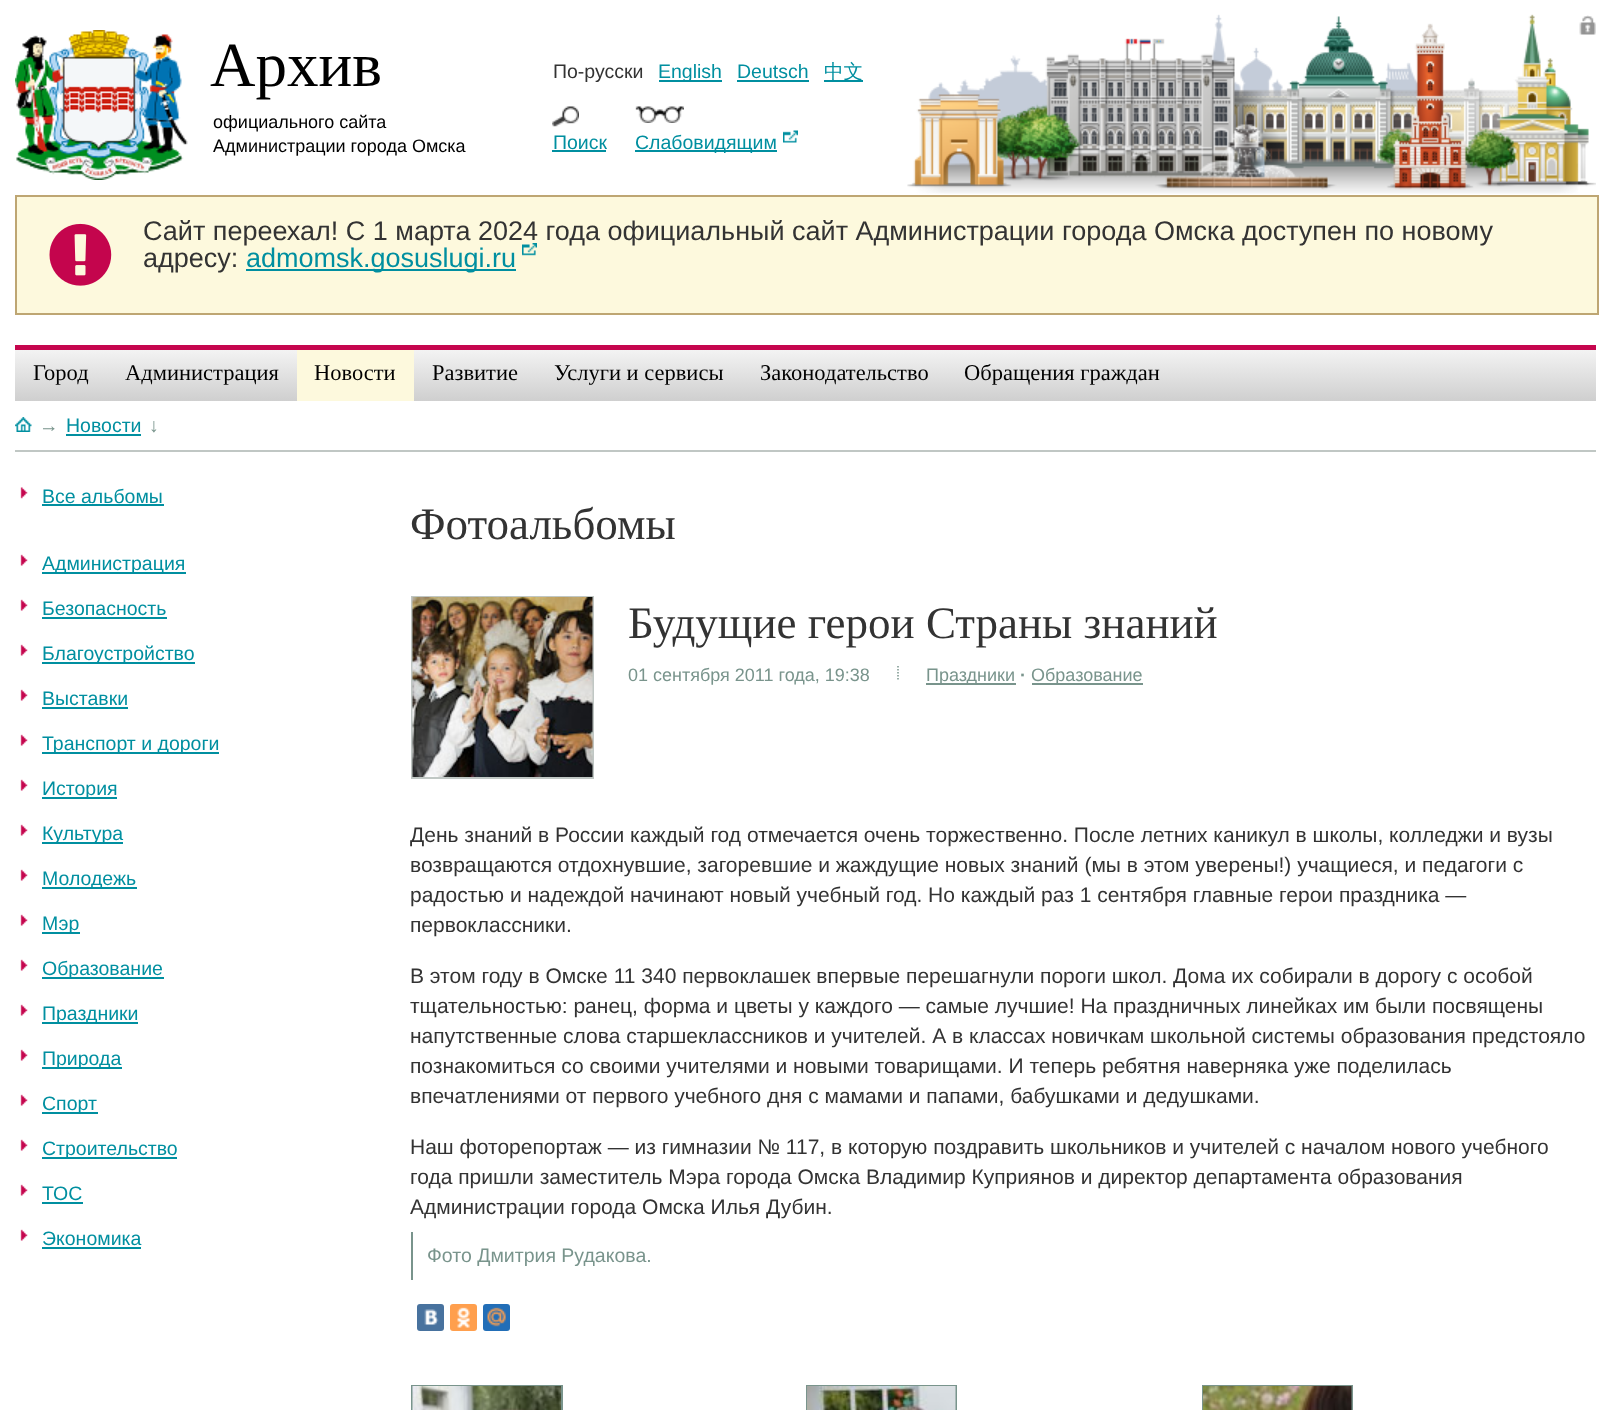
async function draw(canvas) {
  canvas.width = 1610
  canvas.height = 1410
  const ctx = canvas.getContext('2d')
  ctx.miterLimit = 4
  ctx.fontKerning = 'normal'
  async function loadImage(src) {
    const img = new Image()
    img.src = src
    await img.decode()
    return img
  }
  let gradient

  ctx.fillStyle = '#fff'
  ctx.fillRect(0, 0, 1610, 1410)
  ctx.drawImage(await loadImage('image0.png'), 907, 14, 689, 180)
  ctx.drawImage(await loadImage('image1.png'), 1579, 15, 17, 20)
  ctx.drawImage(await loadImage('image2.png'), 15, 30, 173, 150)
  ctx.font = '63px Liberation Serif'
  ctx.fillStyle = '#000'
  ctx.fillText('Архив', 210, 86)
  ctx.font = '18px Liberation Sans'
  ctx.fillText('официального сайта', 213, 128)
  ctx.fillText('Администрации города Омска', 213, 152)
  ctx.font = '19.5px Liberation Sans'
  ctx.fillStyle = '#333'
  ctx.fillText('По-русски', 553, 78)
  ctx.fillStyle = '#008fa0'
  ctx.fillRect(659, 80, 63, 2)
  ctx.fillText('English', 658, 78)
  ctx.fillText('Deutsch', 737, 78)
  ctx.fillRect(737, 80, 72, 2)
  ctx.fillRect(824, 80, 39, 2)
  ctx.font = '500 19.5px WenQuanYi Zen Hei'
  ctx.fillText('中文', 824, 78)
  ctx.drawImage(await loadImage('image3.png'), 552, 106, 27, 21)
  ctx.font = '19.5px Liberation Sans'
  ctx.fillText('Поиск', 553, 149)
  ctx.fillRect(552, 150, 54, 2)
  ctx.drawImage(await loadImage('image4.png'), 635, 106, 49, 17)
  ctx.fillRect(635, 150, 142, 2)
  ctx.fillText('Слабовидящим', 635, 149)
  ctx.drawImage(await loadImage('image5.png'), 783, 130, 15, 13)
  ctx.fillStyle = '#fdf9dd'
  ctx.beginPath()
  ctx.rect(16, 196, 1582, 118)
  ctx.fill()
  ctx.strokeStyle = '#bea673'
  ctx.lineWidth = 2
  ctx.stroke()
  ctx.drawImage(await loadImage('image6.png'), 49, 223, 63, 63)
  ctx.font = '27px Liberation Sans'
  ctx.fillStyle = '#333'
  ctx.fillText('Сайт переехал! С 1 марта 2024 года официальный сайт Администрации города Омска доступен по новому', 143, 240)
  ctx.fillText('адресу:', 143, 267)
  ctx.fillStyle = '#008fa0'
  ctx.fillRect(246, 269, 270, 2)
  ctx.fillText('admomsk.gosuslugi.ru', 246, 267)
  ctx.drawImage(await loadImage('image7.png'), 522, 243, 15, 13)
  gradient = ctx.createLinearGradient(1596, 350, 1596, 401)
  gradient.addColorStop(0, '#f3f3f3')
  gradient.addColorStop(1, '#cfcfcf')
  ctx.fillStyle = gradient
  ctx.fillRect(15, 350, 1581, 51)
  ctx.fillStyle = '#c5064e'
  ctx.fillRect(15, 345, 1581, 5)
  ctx.font = '22.5px Liberation Serif'
  ctx.fillStyle = '#000'
  ctx.fillText('Город', 33, 380)
  ctx.fillText('Администрация', 125, 380)
  ctx.fillStyle = '#fdf9dd'
  ctx.fillRect(297, 350, 117, 51)
  ctx.fillStyle = '#000'
  ctx.fillText('Новости', 314, 380)
  ctx.fillText('Развитие', 432, 380)
  ctx.fillText('Услуги и сервисы', 554, 380)
  ctx.fillText('Законодательство', 760, 380)
  ctx.fillText('Обращения граждан', 964, 380)
  ctx.fillStyle = '#c0c7c4'
  ctx.fillRect(15, 450, 1581, 2)
  ctx.drawImage(await loadImage('image8.png'), 15, 417, 17, 15)
  ctx.font = '19.5px Liberation Sans'
  ctx.fillStyle = '#79948c'
  ctx.fillText('→', 39, 432)
  ctx.fillStyle = '#008fa0'
  ctx.fillText('Новости', 66, 432)
  ctx.fillRect(66, 434, 75, 2)
  ctx.fillStyle = '#79948c'
  ctx.fillText('↓', 149, 432)
  ctx.drawImage(await loadImage('image9.png'), 20, 487, 8, 12)
  ctx.fillStyle = '#008fa0'
  ctx.fillText('Все альбомы', 42, 503)
  ctx.fillRect(42, 504, 122, 2)
  ctx.drawImage(await loadImage('image10.png'), 20, 554, 8, 12)
  ctx.fillRect(42, 572, 144, 2)
  ctx.fillText('Администрация', 42, 570)
  ctx.drawImage(await loadImage('image10.png'), 20, 599, 8, 12)
  ctx.fillText('Безопасность', 42, 615)
  ctx.fillRect(42, 617, 125, 2)
  ctx.drawImage(await loadImage('image10.png'), 20, 644, 8, 12)
  ctx.fillRect(42, 662, 153, 2)
  ctx.fillText('Благоустройство', 42, 660)
  ctx.drawImage(await loadImage('image10.png'), 20, 689, 8, 12)
  ctx.fillText('Выставки', 42, 705)
  ctx.fillRect(42, 707, 86, 2)
  ctx.drawImage(await loadImage('image10.png'), 20, 734, 8, 12)
  ctx.fillRect(42, 752, 177, 2)
  ctx.fillText('Транспорт и дороги', 42, 750)
  ctx.drawImage(await loadImage('image10.png'), 20, 779, 8, 12)
  ctx.fillRect(42, 797, 75, 2)
  ctx.fillText('История', 42, 795)
  ctx.drawImage(await loadImage('image10.png'), 20, 824, 8, 12)
  ctx.fillRect(42, 842, 81, 2)
  ctx.fillText('Культура', 42, 840)
  ctx.drawImage(await loadImage('image10.png'), 20, 869, 8, 12)
  ctx.fillRect(42, 887, 95, 2)
  ctx.fillText('Молодежь', 42, 885)
  ctx.drawImage(await loadImage('image10.png'), 20, 914, 8, 12)
  ctx.fillRect(42, 932, 38, 2)
  ctx.fillText('Мэр', 42, 930)
  ctx.drawImage(await loadImage('image10.png'), 20, 959, 8, 12)
  ctx.fillRect(42, 977, 122, 2)
  ctx.fillText('Образование', 42, 975)
  ctx.drawImage(await loadImage('image10.png'), 20, 1004, 8, 12)
  ctx.fillRect(42, 1022, 96, 2)
  ctx.fillText('Праздники', 42, 1020)
  ctx.drawImage(await loadImage('image10.png'), 20, 1049, 8, 12)
  ctx.fillRect(42, 1067, 80, 2)
  ctx.fillText('Природа', 42, 1065)
  ctx.drawImage(await loadImage('image10.png'), 20, 1094, 8, 12)
  ctx.fillRect(42, 1112, 56, 2)
  ctx.fillText('Спорт', 42, 1110)
  ctx.drawImage(await loadImage('image10.png'), 20, 1139, 8, 12)
  ctx.fillRect(42, 1157, 135, 2)
  ctx.fillText('Строительство', 42, 1155)
  ctx.drawImage(await loadImage('image10.png'), 20, 1184, 8, 12)
  ctx.fillText('ТОС', 42, 1200)
  ctx.fillRect(42, 1202, 41, 2)
  ctx.drawImage(await loadImage('image10.png'), 20, 1229, 8, 12)
  ctx.fillText('Экономика', 42, 1245)
  ctx.fillRect(42, 1247, 99, 2)
  ctx.font = '45px Liberation Serif'
  ctx.fillStyle = '#333'
  ctx.fillText('Фотоальбомы', 410, 539)
  ctx.strokeStyle = '#c0c7c4'
  ctx.strokeRect(412, 597, 181, 181)
  ctx.drawImage(await loadImage('image11.png'), 412, 597, 181, 180)
  ctx.fillText('Будущие герои Страны знаний', 628, 638)
  ctx.font = '18px Liberation Sans'
  ctx.fillStyle = '#79948c'
  ctx.fillText('01 сентября 2011 года, 19:38', 628, 681)
  ctx.beginPath()
  ctx.moveTo(898, 666)
  ctx.lineTo(898, 681)
  ctx.strokeStyle = '#79948c'
  ctx.lineWidth = 1.5
  ctx.setLineDash([1.5, 1.5])
  ctx.stroke()
  ctx.fillRect(926, 683, 90, 2)
  ctx.fillText('Праздники', 926, 681)
  ctx.font = 'bold 18px Liberation Sans'
  ctx.fillText('·', 1020, 681)
  ctx.fillRect(1032, 683, 111, 2)
  ctx.font = '18px Liberation Sans'
  ctx.fillText('Образование', 1031, 681)
  ctx.font = '21px Liberation Sans'
  ctx.fillStyle = '#333'
  ctx.fillText('День знаний в России каждый год отмечается очень торжественно. После летних каникул в школы, колледжи и вузы', 410, 842)
  ctx.fillText('возвращаются отдохнувшие, загоревшие и жаждущие новых знаний (мы в этом уверены!) учащиеся, и педагоги с', 410, 872)
  ctx.fillText('радостью и надеждой начинают новый учебный год. Но каждый раз 1 сентября главные герои праздника —', 410, 902)
  ctx.fillText('первоклассники.', 410, 932)
  ctx.fillText('В этом году в Омске 11 340 первоклашек впервые перешагнули пороги школ. Дома их собирали в дорогу с особой', 410, 983)
  ctx.fillText('тщательностью: ранец, форма и цветы у каждого — самые лучшие! На праздничных линейках им были посвящены', 410, 1013)
  ctx.fillText('напутственные слова старшеклассников и учителей. А в классах новичкам школьной системы образования предстояло', 410, 1043)
  ctx.fillText('познакомиться со своими учителями и новыми товарищами. И теперь ребятня наверняка уже поделилась', 410, 1073)
  ctx.fillText('впечатлениями от первого учебного дня с мамами и папами, бабушками и дедушками.', 410, 1103)
  ctx.fillText('Наш фоторепортаж — из гимназии № 117, в которую поздравить школьников и учителей с началом нового учебного', 410, 1154)
  ctx.fillText('года пришли заместитель Мэра города Омска Владимир Куприянов и директор департамента образования', 410, 1184)
  ctx.fillText('Администрации города Омска Илья Дубин.', 410, 1214)
  ctx.fillStyle = '#79948c'
  ctx.fillRect(411, 1232, 2, 48)
  ctx.font = '19.5px Liberation Sans'
  ctx.fillText('Фото Дмитрия Рудакова.', 427, 1262)
  ctx.fillStyle = '#48729e'
  ctx.beginPath()
  ctx.roundRect(417, 1304, 27, 27, 3)
  ctx.fill()
  ctx.drawImage(await loadImage('image12.png'), 424, 1309, 15, 16)
  ctx.fillStyle = '#ff9f4d'
  ctx.beginPath()
  ctx.roundRect(450, 1304, 27, 27, 3)
  ctx.fill()
  ctx.drawImage(await loadImage('image13.png'), 457, 1307, 13, 21)
  ctx.fillStyle = '#226eb7'
  ctx.beginPath()
  ctx.roundRect(483, 1304, 27, 27, 3)
  ctx.fill()
  ctx.drawImage(await loadImage('image14.png'), 487, 1307, 19, 20)
  ctx.lineWidth = 2
  ctx.setLineDash([])
  ctx.strokeRect(412, 1386, 150, 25)
  ctx.drawImage(await loadImage('image15.png'), 412, 1386, 149, 24)
  ctx.strokeRect(807, 1386, 149, 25)
  ctx.drawImage(await loadImage('image16.png'), 807, 1386, 149, 24)
  ctx.strokeRect(1203, 1386, 149, 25)
  ctx.drawImage(await loadImage('image17.png'), 1203, 1386, 149, 24)
}

draw(document.querySelector('canvas'))
